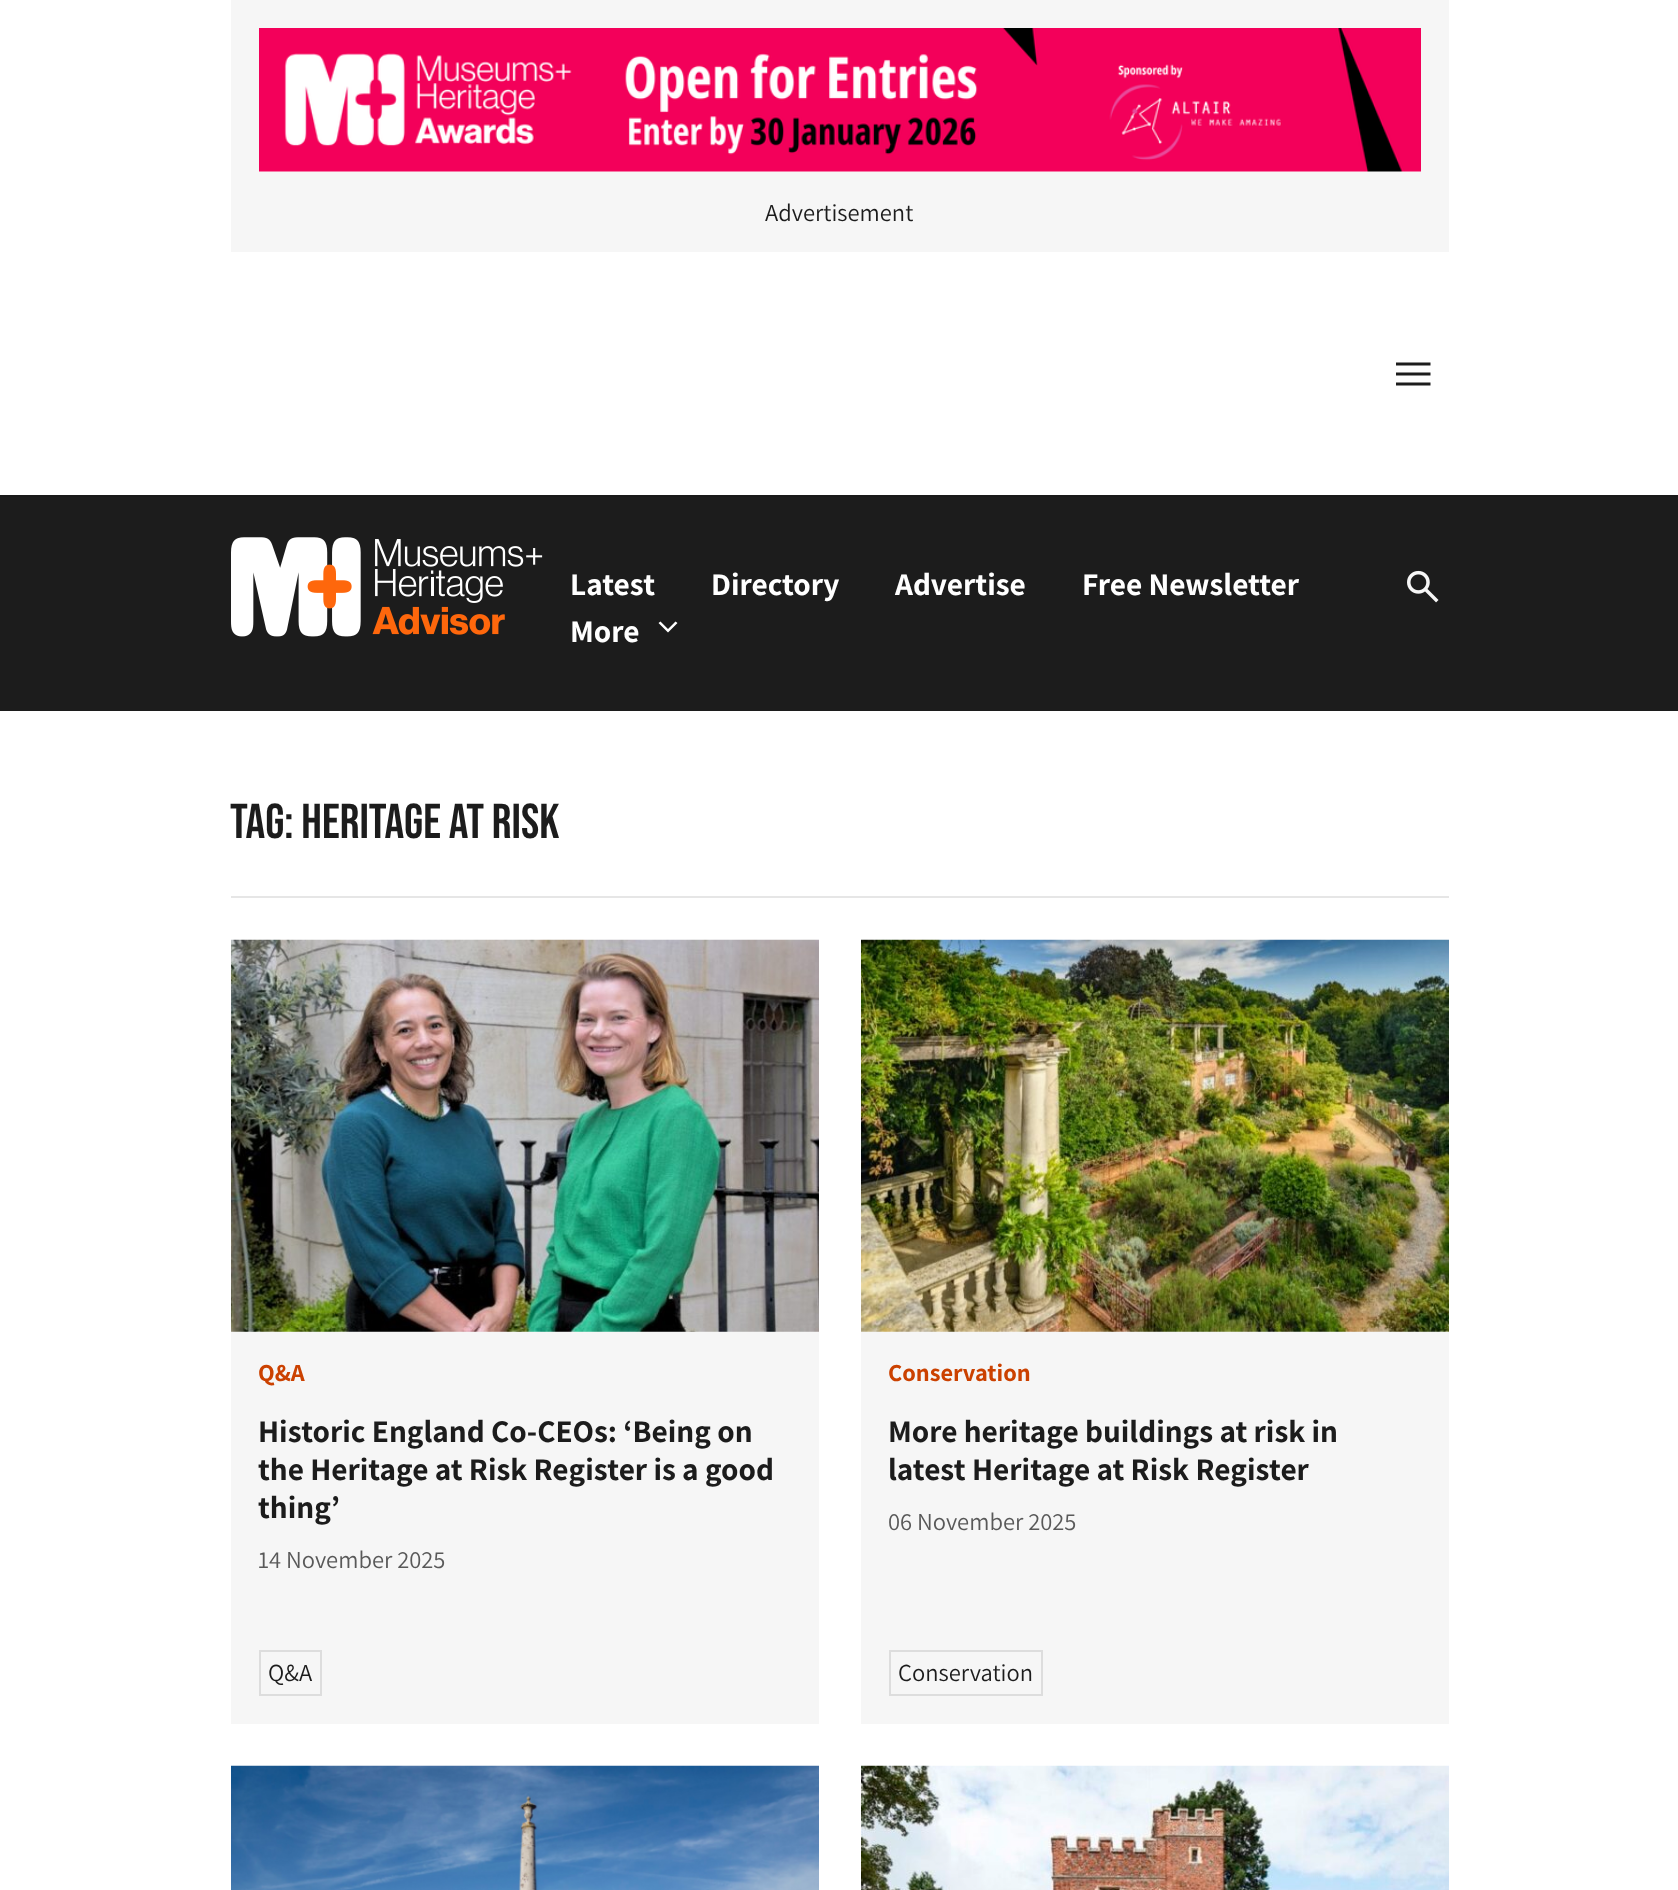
async function draw(canvas) {
  canvas.width = 1678
  canvas.height = 1890
  const ctx = canvas.getContext('2d')
  ctx.miterLimit = 4
  ctx.fontKerning = 'normal'
  async function loadImage(src) {
    const img = new Image()
    img.src = src
    await img.decode()
    return img
  }

  ctx.fillStyle = '#fff'
  ctx.fillRect(0, 0, 1678, 1890)
  ctx.fillStyle = '#191919'
  ctx.fillRect(0, 495, 1678, 2)
  ctx.fillStyle = '#f6f6f6'
  ctx.fillRect(231, 0, 1218, 252)
  ctx.drawImage(await loadImage('image0.png'), 259, 28, 1162, 144)
  ctx.font = '24.5px Assistant'
  ctx.fillStyle = '#1c1c1c'
  ctx.fillText('Advertisement', 765, 221)
  ctx.beginPath()
  ctx.moveTo(1396, 385.5)
  ctx.lineTo(1396, 382.5)
  ctx.lineTo(1430.5, 382.5)
  ctx.lineTo(1430.5, 385.5)
  ctx.closePath()
  ctx.moveTo(1396, 375.5)
  ctx.lineTo(1396, 372.5)
  ctx.lineTo(1430.5, 372.5)
  ctx.lineTo(1430.5, 375.5)
  ctx.closePath()
  ctx.moveTo(1396, 365.5)
  ctx.lineTo(1396, 362.5)
  ctx.lineTo(1430.5, 362.5)
  ctx.lineTo(1430.5, 365.5)
  ctx.closePath()
  ctx.fill()
  ctx.fillRect(0, 497, 1678, 214)
  ctx.drawImage(await loadImage('image1.png'), 231, 537, 312, 100)
  ctx.font = 'bold 31.5px Assistant'
  ctx.fillStyle = '#fff'
  ctx.fillText('Latest', 570, 595)
  ctx.fillText('Directory', 711, 595)
  ctx.fillText('Advertise', 895, 595)
  ctx.fillText('Free Newsletter', 1082, 595)
  ctx.fillText('More', 570, 642)
  ctx.beginPath()
  ctx.moveTo(668, 632.5)
  ctx.lineTo(658.5, 623)
  ctx.lineTo(660.5, 621.5)
  ctx.lineTo(668, 629)
  ctx.lineTo(675.5, 621.5)
  ctx.lineTo(677.5, 623)
  ctx.closePath()
  ctx.fill()
  ctx.drawImage(await loadImage('image2.png'), 1407, 570, 32, 33)
  ctx.fillStyle = '#e6e6e6'
  ctx.fillRect(231, 896, 1218, 2)
  ctx.font = '49px Bebas Neue'
  ctx.fillStyle = '#1c1c1c'
  ctx.fillText('TAG: HERITAGE AT RISK', 230, 838)
  ctx.fillStyle = '#f6f6f6'
  ctx.fillRect(231, 1331, 588, 393)
  ctx.drawImage(await loadImage('image3.png'), 231, 939, 588, 393)
  ctx.font = 'bold 24.5px Assistant'
  ctx.fillStyle = '#cb4100'
  ctx.fillText('Q&A', 258, 1381)
  ctx.font = 'bold 31.5px Assistant'
  ctx.fillStyle = '#1c1c1c'
  ctx.fillText('Historic England Co-CEOs: ‘Being on', 258, 1442)
  ctx.fillText('the Heritage at Risk Register is a good', 258, 1480)
  ctx.fillText('thing’', 258, 1518)
  ctx.font = '24.5px Assistant'
  ctx.fillStyle = '#595959'
  ctx.fillText('14 November 2025', 258, 1568)
  ctx.strokeStyle = '#ddd'
  ctx.lineWidth = 2
  ctx.strokeRect(260, 1651, 61, 44)
  ctx.fillStyle = '#1c1c1c'
  ctx.fillText('Q&A', 268, 1681)
  ctx.fillStyle = '#f6f6f6'
  ctx.fillRect(861, 1331, 588, 393)
  ctx.drawImage(await loadImage('image4.png'), 861, 939, 588, 393)
  ctx.font = 'bold 24.5px Assistant'
  ctx.fillStyle = '#cb4100'
  ctx.fillText('Conservation', 888, 1381)
  ctx.font = 'bold 31.5px Assistant'
  ctx.fillStyle = '#1c1c1c'
  ctx.fillText('More heritage buildings at risk in', 888, 1442)
  ctx.fillText('latest Heritage at Risk Register', 888, 1480)
  ctx.font = '24.5px Assistant'
  ctx.fillStyle = '#595959'
  ctx.fillText('06 November 2025', 888, 1530)
  ctx.strokeRect(890, 1651, 152, 44)
  ctx.fillStyle = '#1c1c1c'
  ctx.fillText('Conservation', 898, 1681)
  ctx.drawImage(await loadImage('image5.png'), 231, 1765, 588, 125)
  ctx.drawImage(await loadImage('image6.png'), 861, 1765, 588, 125)
}

draw(document.querySelector('canvas'))
